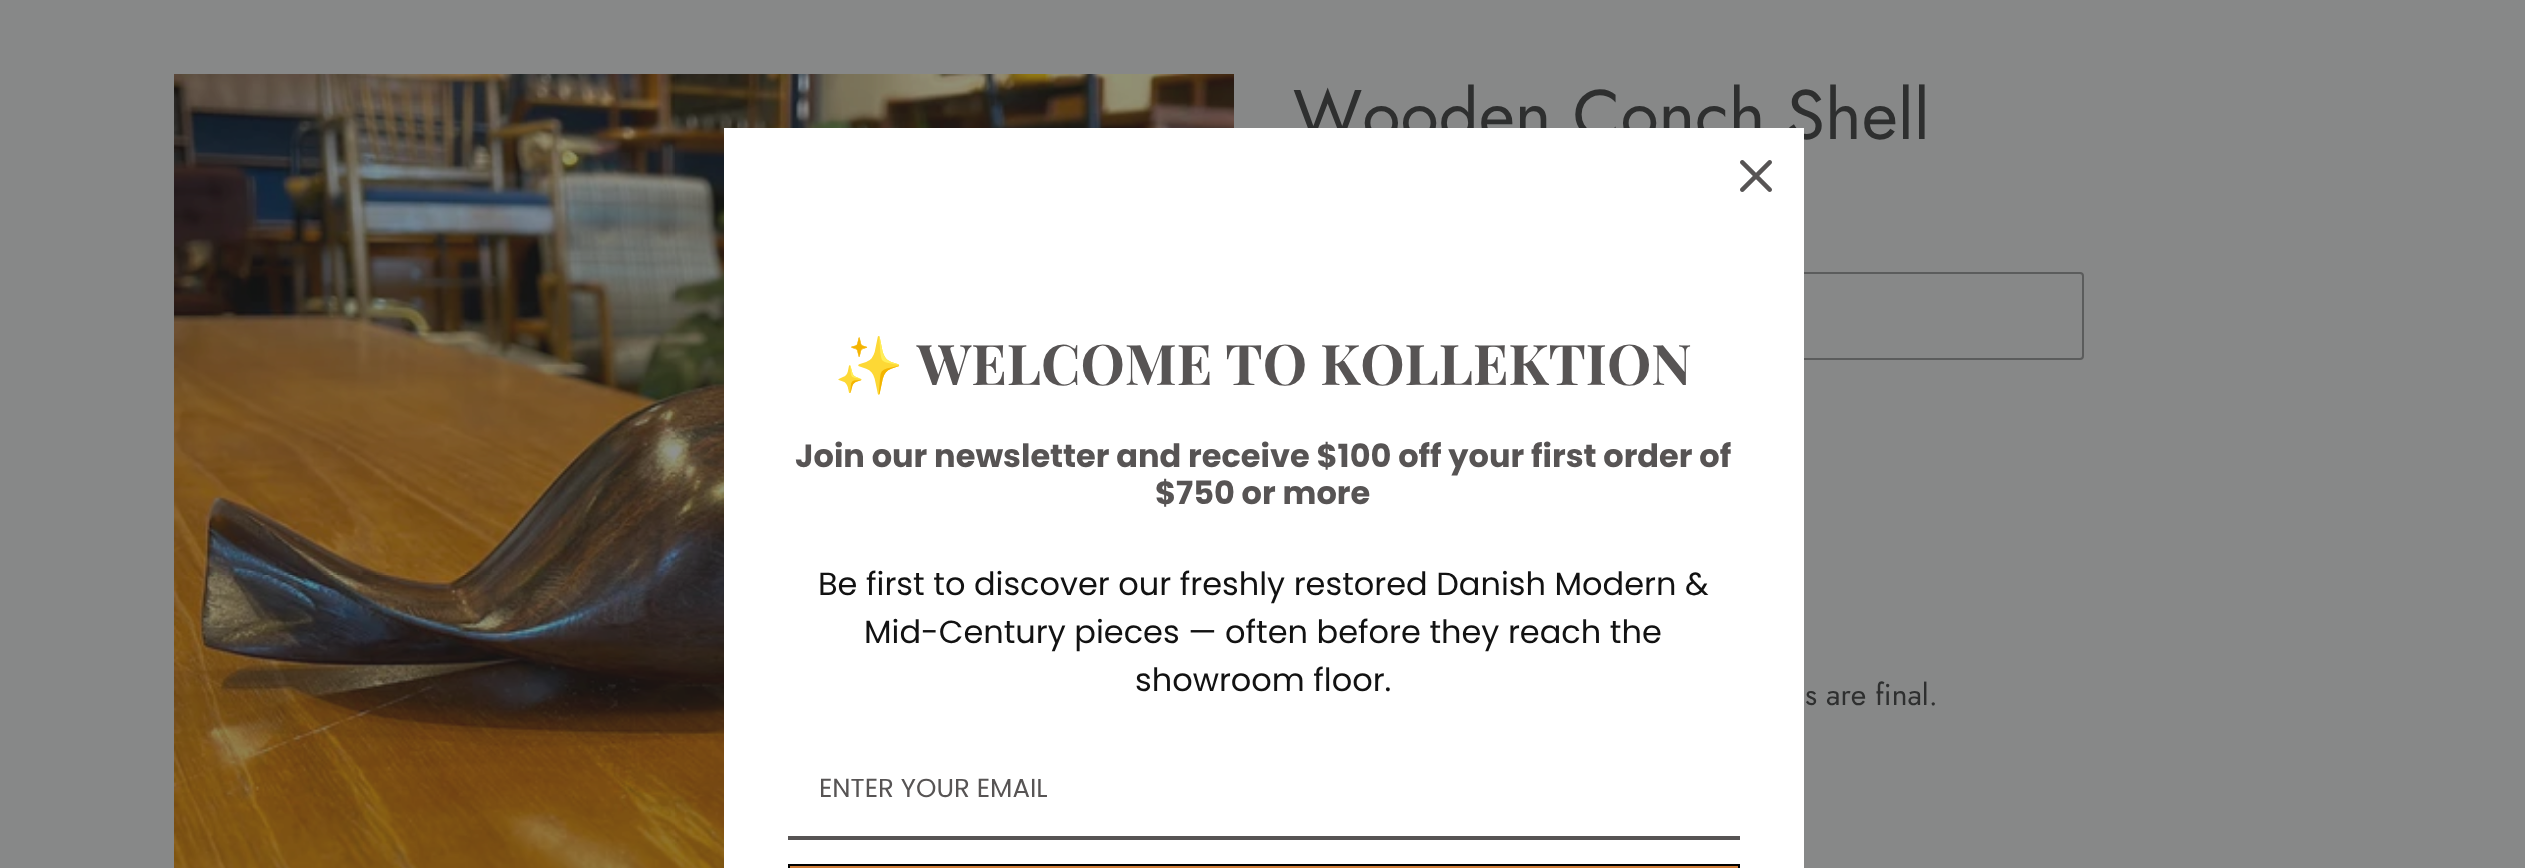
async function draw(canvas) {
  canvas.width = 2525
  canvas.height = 868
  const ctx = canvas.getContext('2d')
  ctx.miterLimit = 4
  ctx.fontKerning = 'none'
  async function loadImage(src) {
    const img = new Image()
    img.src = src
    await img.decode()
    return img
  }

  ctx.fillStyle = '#878888'
  ctx.fillRect(0, 0, 2525, 868)
  ctx.drawImage(await loadImage('image0.png'), 174, 74, 1060, 794)
  ctx.font = '70px Jost'
  ctx.fillStyle = '#2e2f2f'
  ctx.fillText('Wooden Conch Shell', 1293, 139)
  ctx.beginPath()
  ctx.roundRect(1305, 273, 778, 86, 3)
  ctx.strokeStyle = '#5b5c5c'
  ctx.lineWidth = 2
  ctx.stroke()
  ctx.font = '30px Jost'
  ctx.fillText('s are final.', 1805, 705)
  ctx.fillStyle = '#fff'
  ctx.fillRect(724, 128, 1080, 740)
  ctx.drawImage(await loadImage('image1.png'), 1740, 160, 32, 32)
  ctx.font = 'bold 56px Noto Color Emoji'
  ctx.fillStyle = '#575454'
  ctx.fillText('✨', 834, 385)
  ctx.font = 'bold 56px Playfair Display'
  ctx.fillText('WELCOME TO KOLLEKTION', 917, 385)
  ctx.font = 'bold 32px Poppins'
  ctx.fillText('Join our newsletter and receive $100 off your first order of', 795, 467)
  ctx.fillText('$750 or more', 1155, 504)
  ctx.font = '32px Poppins'
  ctx.fillStyle = '#121212'
  ctx.fillText('Be first to discover our freshly restored Danish Modern &', 818, 595)
  ctx.fillText('Mid-Century pieces — often before they reach the', 864, 643)
  ctx.fillText('showroom floor.', 1135, 691)
  ctx.fillStyle = '#575454'
  ctx.fillRect(788, 836, 952, 4)
  ctx.font = '26px Poppins'
  ctx.fillText('ENTER YOUR EMAIL', 819, 797)
  ctx.fillStyle = '#d17d37'
  ctx.beginPath()
  ctx.rect(789, 865, 950, 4)
  ctx.fill()
  ctx.strokeStyle = '#000'
  ctx.stroke()
}

draw(document.querySelector('canvas'))
